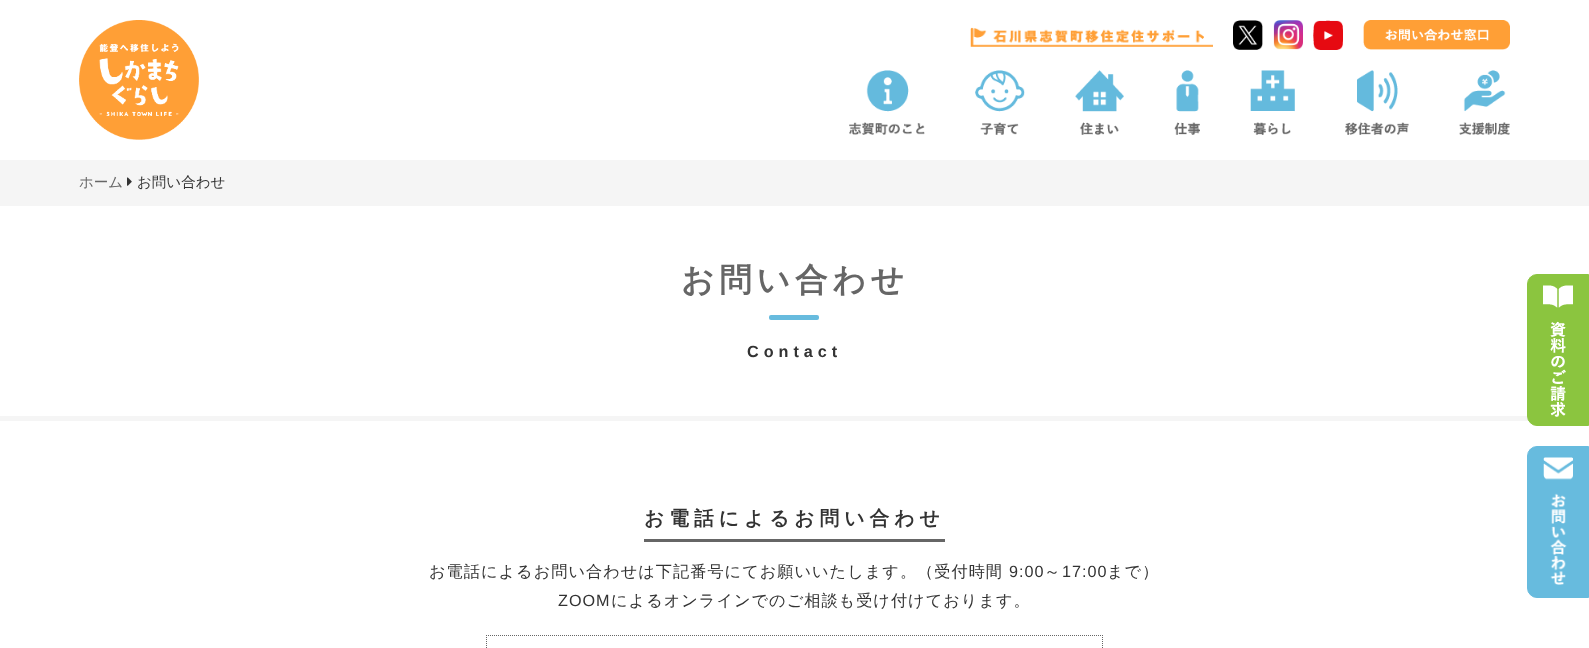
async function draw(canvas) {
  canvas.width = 1589
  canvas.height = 648
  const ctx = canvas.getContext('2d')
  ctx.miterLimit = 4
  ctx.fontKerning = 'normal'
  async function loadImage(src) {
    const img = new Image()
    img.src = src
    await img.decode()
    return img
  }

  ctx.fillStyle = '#fff'
  ctx.fillRect(0, 0, 1589, 648)
  ctx.drawImage(await loadImage('image0.png'), 79, 20, 120, 120)
  ctx.drawImage(await loadImage('image1.png'), 970, 27, 243, 20)
  ctx.drawImage(await loadImage('image2.png'), 1233, 20, 30, 30)
  ctx.drawImage(await loadImage('image3.png'), 1273, 20, 30, 30)
  ctx.drawImage(await loadImage('image4.png'), 1313, 20, 30, 30)
  ctx.drawImage(await loadImage('image5.png'), 1363, 20, 147, 30)
  ctx.drawImage(await loadImage('image6.png'), 849, 70, 76, 65)
  ctx.drawImage(await loadImage('image7.png'), 975, 70, 50, 65)
  ctx.drawImage(await loadImage('image8.png'), 1075, 70, 49, 65)
  ctx.drawImage(await loadImage('image9.png'), 1174, 70, 26, 65)
  ctx.drawImage(await loadImage('image10.png'), 1250, 70, 45, 65)
  ctx.drawImage(await loadImage('image11.png'), 1345, 70, 64, 65)
  ctx.drawImage(await loadImage('image12.png'), 1459, 70, 51, 65)
  ctx.fillStyle = '#f5f5f5'
  ctx.fillRect(0, 160, 1589, 46)
  ctx.font = '500 14.5px WenQuanYi Zen Hei'
  ctx.fillStyle = '#666'
  ctx.fillText('ホーム', 79, 187)
  ctx.drawImage(await loadImage('image13.png'), 127, 177, 5, 9)
  ctx.fillStyle = '#333'
  ctx.fillText('お問い合わせ', 137, 187)
  ctx.fillStyle = '#f5f5f5'
  ctx.fillRect(0, 416, 1529, 5)
  ctx.letterSpacing = '5px'
  ctx.font = 'bold 32.5px WenQuanYi Zen Hei'
  ctx.fillStyle = '#666'
  ctx.fillText('お問い合わせ', 681, 291)
  ctx.fillStyle = '#67bbde'
  ctx.beginPath()
  ctx.roundRect(769, 315, 50, 5, 2)
  ctx.fill()
  ctx.font = 'bold 16.2px Liberation Sans'
  ctx.fillStyle = '#333'
  ctx.fillText('Contact', 747, 357)
  ctx.fillStyle = '#8bc53f'
  ctx.beginPath()
  ctx.roundRect(1527.5, 274.5, 61, 151, [9.5, 0, 0, 9.5])
  ctx.fill()
  ctx.strokeStyle = '#8bc53f'
  ctx.stroke()
  ctx.drawImage(await loadImage('image14.png'), 1543, 285, 30, 132)
  ctx.fillStyle = '#67bbde'
  ctx.beginPath()
  ctx.roundRect(1527.5, 446.5, 61, 151, [9.5, 0, 0, 9.5])
  ctx.fill()
  ctx.strokeStyle = '#67bbde'
  ctx.stroke()
  ctx.drawImage(await loadImage('image15.png'), 1543, 457, 30, 128)
  ctx.font = 'bold 19.75px WenQuanYi Zen Hei'
  ctx.fillStyle = '#333'
  ctx.fillText('お電話によるお問い合わせ', 644, 525)
  ctx.fillStyle = '#666'
  ctx.fillRect(644, 539, 301, 3)
  ctx.letterSpacing = '1px'
  ctx.font = '500 16.2px WenQuanYi Zen Hei'
  ctx.fillStyle = '#333'
  ctx.fillText('お電話によるお問い合わせは下記番号にてお願いいたします。（受付時間', 429, 577)
  ctx.font = '16.2px Liberation Sans'
  ctx.fillText('9:00', 1009, 577)
  ctx.font = '500 16.2px WenQuanYi Zen Hei'
  ctx.fillText('～', 1044, 577)
  ctx.font = '16.2px Liberation Sans'
  ctx.fillText('17:00', 1062, 577)
  ctx.font = '500 16.2px WenQuanYi Zen Hei'
  ctx.fillText('まで）', 1107, 577)
  ctx.font = '16.2px Liberation Sans'
  ctx.fillText('ZOOM', 558, 606)
  ctx.font = '500 16.2px WenQuanYi Zen Hei'
  ctx.fillText('によるオンラインでのご相談も受け付けております。', 611, 606)
  ctx.beginPath()
  ctx.moveTo(486, 635.5)
  ctx.lineTo(1103, 635.5)
  ctx.strokeStyle = '#666'
  ctx.setLineDash([1, 1])
  ctx.stroke()
  ctx.beginPath()
  ctx.moveTo(1102.5, 635)
  ctx.lineTo(1102.5, 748)
  ctx.stroke()
  ctx.beginPath()
  ctx.moveTo(486.5, 635)
  ctx.lineTo(486.5, 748)
  ctx.stroke()
}

draw(document.querySelector('canvas'))
